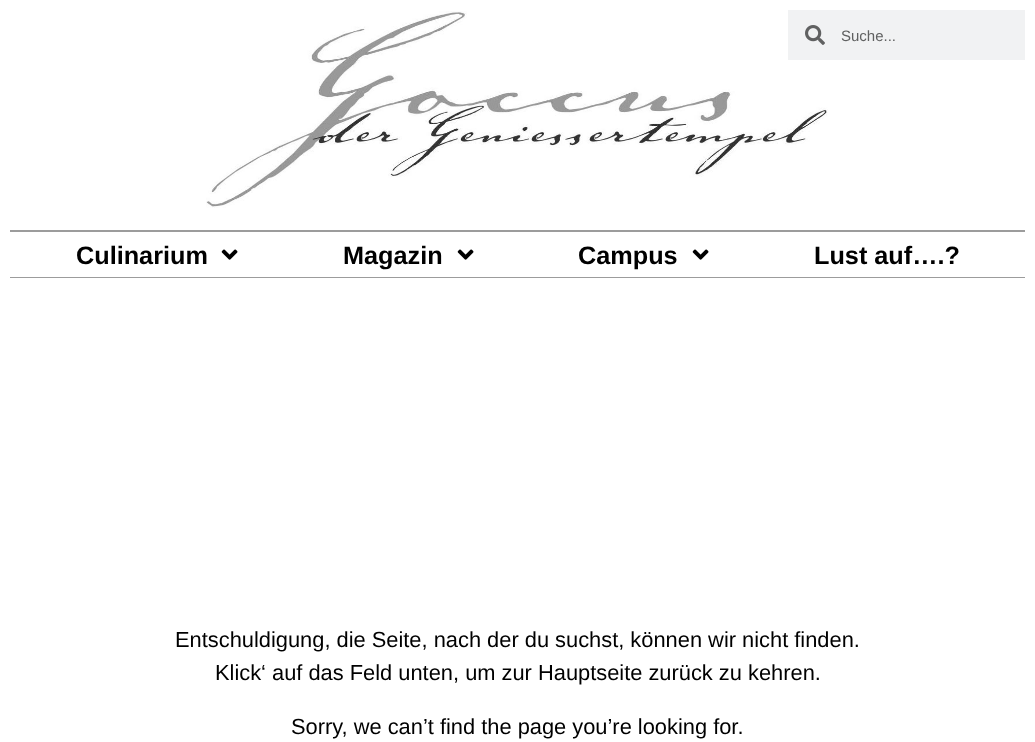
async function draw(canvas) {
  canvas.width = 1035
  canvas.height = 742
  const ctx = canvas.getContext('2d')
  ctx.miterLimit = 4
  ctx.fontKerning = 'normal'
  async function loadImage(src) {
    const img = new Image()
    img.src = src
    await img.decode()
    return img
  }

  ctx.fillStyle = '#fff'
  ctx.fillRect(0, 0, 1035, 742)
  ctx.drawImage(await loadImage('image0.png'), 206, 11, 622, 197)
  ctx.fillStyle = '#f1f2f3'
  ctx.fillRect(788, 10, 237, 50)
  ctx.drawImage(await loadImage('image1.png'), 805, 25, 20, 20)
  ctx.font = '15px Liberation Sans'
  ctx.fillStyle = '#606161'
  ctx.fillText('Suche...', 841, 41)
  ctx.fillStyle = '#9c9c9c'
  ctx.fillRect(10, 230, 1015, 2)
  ctx.fillRect(10, 277, 1015, 1)
  ctx.font = 'bold 25.25px Liberation Sans'
  ctx.fillStyle = '#000'
  ctx.fillText('Culinarium', 76, 264)
  ctx.drawImage(await loadImage('image2.png'), 221, 249, 17, 11)
  ctx.fillText('Magazin', 343, 264)
  ctx.drawImage(await loadImage('image2.png'), 457, 249, 17, 11)
  ctx.fillText('Campus', 578, 264)
  ctx.drawImage(await loadImage('image2.png'), 692, 249, 17, 11)
  ctx.fillText('Lust auf….?', 814, 264)
  ctx.font = '21.85px Liberation Sans'
  ctx.fillText('Entschuldigung, die Seite, nach der du suchst, können wir nicht finden.', 175, 647)
  ctx.fillText('Klick‘ auf das Feld unten, um zur Hauptseite zurück zu kehren.', 215, 680)
  ctx.fillText('Sorry, we can’t find the page you’re looking for.', 291, 734)
}

draw(document.querySelector('canvas'))
